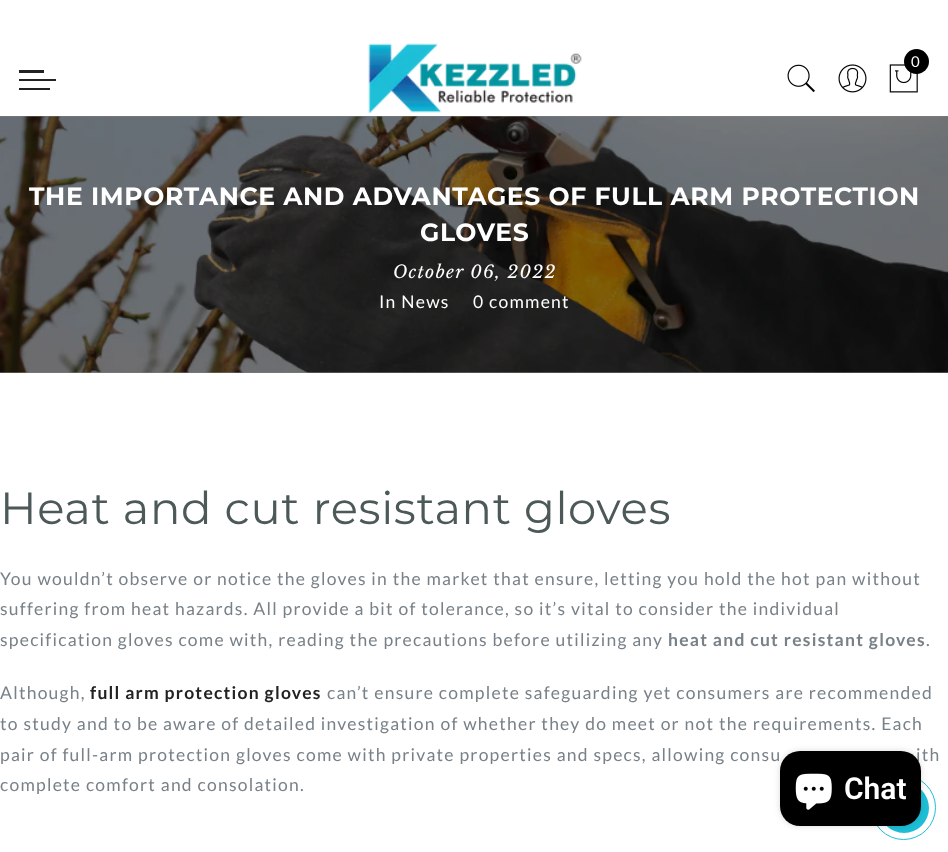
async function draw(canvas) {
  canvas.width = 948
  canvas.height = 852
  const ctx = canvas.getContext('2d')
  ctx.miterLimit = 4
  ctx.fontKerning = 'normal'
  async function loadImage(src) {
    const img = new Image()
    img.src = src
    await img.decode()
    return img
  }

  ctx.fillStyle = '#fff'
  ctx.fillRect(0, 0, 948, 852)
  ctx.fillStyle = '#808080'
  ctx.fillRect(0, 116, 948, 257)
  ctx.drawImage(await loadImage('image0.png'), 368, 43, 214, 71)
  ctx.drawImage(await loadImage('image1.png'), 889, 64, 29, 29)
  ctx.fillStyle = '#000'
  ctx.beginPath()
  ctx.arc(916.5, 61.5, 12.5, 0, 2 * Math.PI)
  ctx.fill()
  ctx.letterSpacing = '1.25px'
  ctx.font = '15px Lato'
  ctx.fillStyle = '#fff'
  ctx.fillText('0', 911, 67)
  ctx.drawImage(await loadImage('image2.png'), 787, 64, 28, 29)
  ctx.drawImage(await loadImage('image3.png'), 838, 64, 29, 29)
  ctx.fillStyle = '#222'
  ctx.fillRect(19, 70, 25, 3)
  ctx.fillRect(19, 79, 37, 2)
  ctx.fillRect(19, 88, 31, 2)
  ctx.drawImage(await loadImage('image4.png'), 0, 116, 948, 257)
  ctx.letterSpacing = '0.62px'
  ctx.font = 'bold 25px Montserrat'
  ctx.fillStyle = '#fff'
  ctx.fillText('THE IMPORTANCE AND ADVANTAGES OF FULL ARM PROTECTION', 29, 205)
  ctx.fillText('GLOVES', 420, 241)
  ctx.letterSpacing = '1.25px'
  ctx.font = 'italic 17.5px Libre Baskerville'
  ctx.fillText('October 06, 2022', 393, 278)
  ctx.font = '17.5px Lato'
  ctx.fillText('In News', 379, 308)
  ctx.fillText('0 comment', 473, 308)
  ctx.letterSpacing = '0.62px'
  ctx.font = '45px Montserrat'
  ctx.fillStyle = '#4d5959'
  ctx.fillText('Heat and cut resistant gloves', 0, 524)
  ctx.letterSpacing = '1.25px'
  ctx.font = '17.5px Lato'
  ctx.fillStyle = '#788188'
  ctx.fillText('You wouldn’t observe or notice the gloves in the market that ensure, letting you hold the hot pan without', 0, 585)
  ctx.fillText('suffering from heat hazards. All provide a bit of tolerance, so it’s vital to consider the individual', 0, 615)
  ctx.fillText('specification gloves come with, reading the precautions before utilizing any', 0, 646)
  ctx.font = 'bold 17.5px Lato'
  ctx.fillText('heat and cut resistant gloves', 668, 646)
  ctx.font = '17.5px Lato'
  ctx.fillText('.', 926, 646)
  ctx.fillText('Although,', 0, 699)
  ctx.font = 'bold 17.5px Lato'
  ctx.fillStyle = '#222'
  ctx.fillText('full arm protection gloves', 90, 699)
  ctx.font = '17.5px Lato'
  ctx.fillStyle = '#788188'
  ctx.fillText('can’t ensure complete safeguarding yet consumers are recommended', 327, 699)
  ctx.fillText('to study and to be aware of detailed investigation of whether they do meet or not the requirements. Each', 0, 730)
  ctx.fillText('pair of full-arm protection gloves come with private properties and specs, allowing consu', 0, 761)
  ctx.fillText('ith', 916, 761)
  ctx.fillText('complete comfort and consolation.', 0, 791)
  ctx.beginPath()
  ctx.arc(903.5, 807.5, 32, 0, 2 * Math.PI)
  ctx.strokeStyle = '#1dbfd7'
  ctx.stroke()
  ctx.fillStyle = '#1dbfd7'
  ctx.beginPath()
  ctx.arc(904, 808, 25, 0, 2 * Math.PI)
  ctx.fill()
  ctx.fillStyle = '#00000026'
  ctx.filter = 'blur(3px)'
  ctx.beginPath()
  ctx.roundRect(780, 751, 141, 75, 20)
  ctx.fill()
  ctx.filter = 'none'
  ctx.fillStyle = '#000'
  ctx.beginPath()
  ctx.roundRect(780, 751, 141, 75, 20)
  ctx.fill()
  ctx.drawImage(await loadImage('image5.png'), 795, 773, 37, 37)
  ctx.letterSpacing = '0px'
  ctx.font = '600 30px Roboto'
  ctx.fillStyle = '#fff'
  ctx.fillText('Chat', 844, 799)
}

draw(document.querySelector('canvas'))
